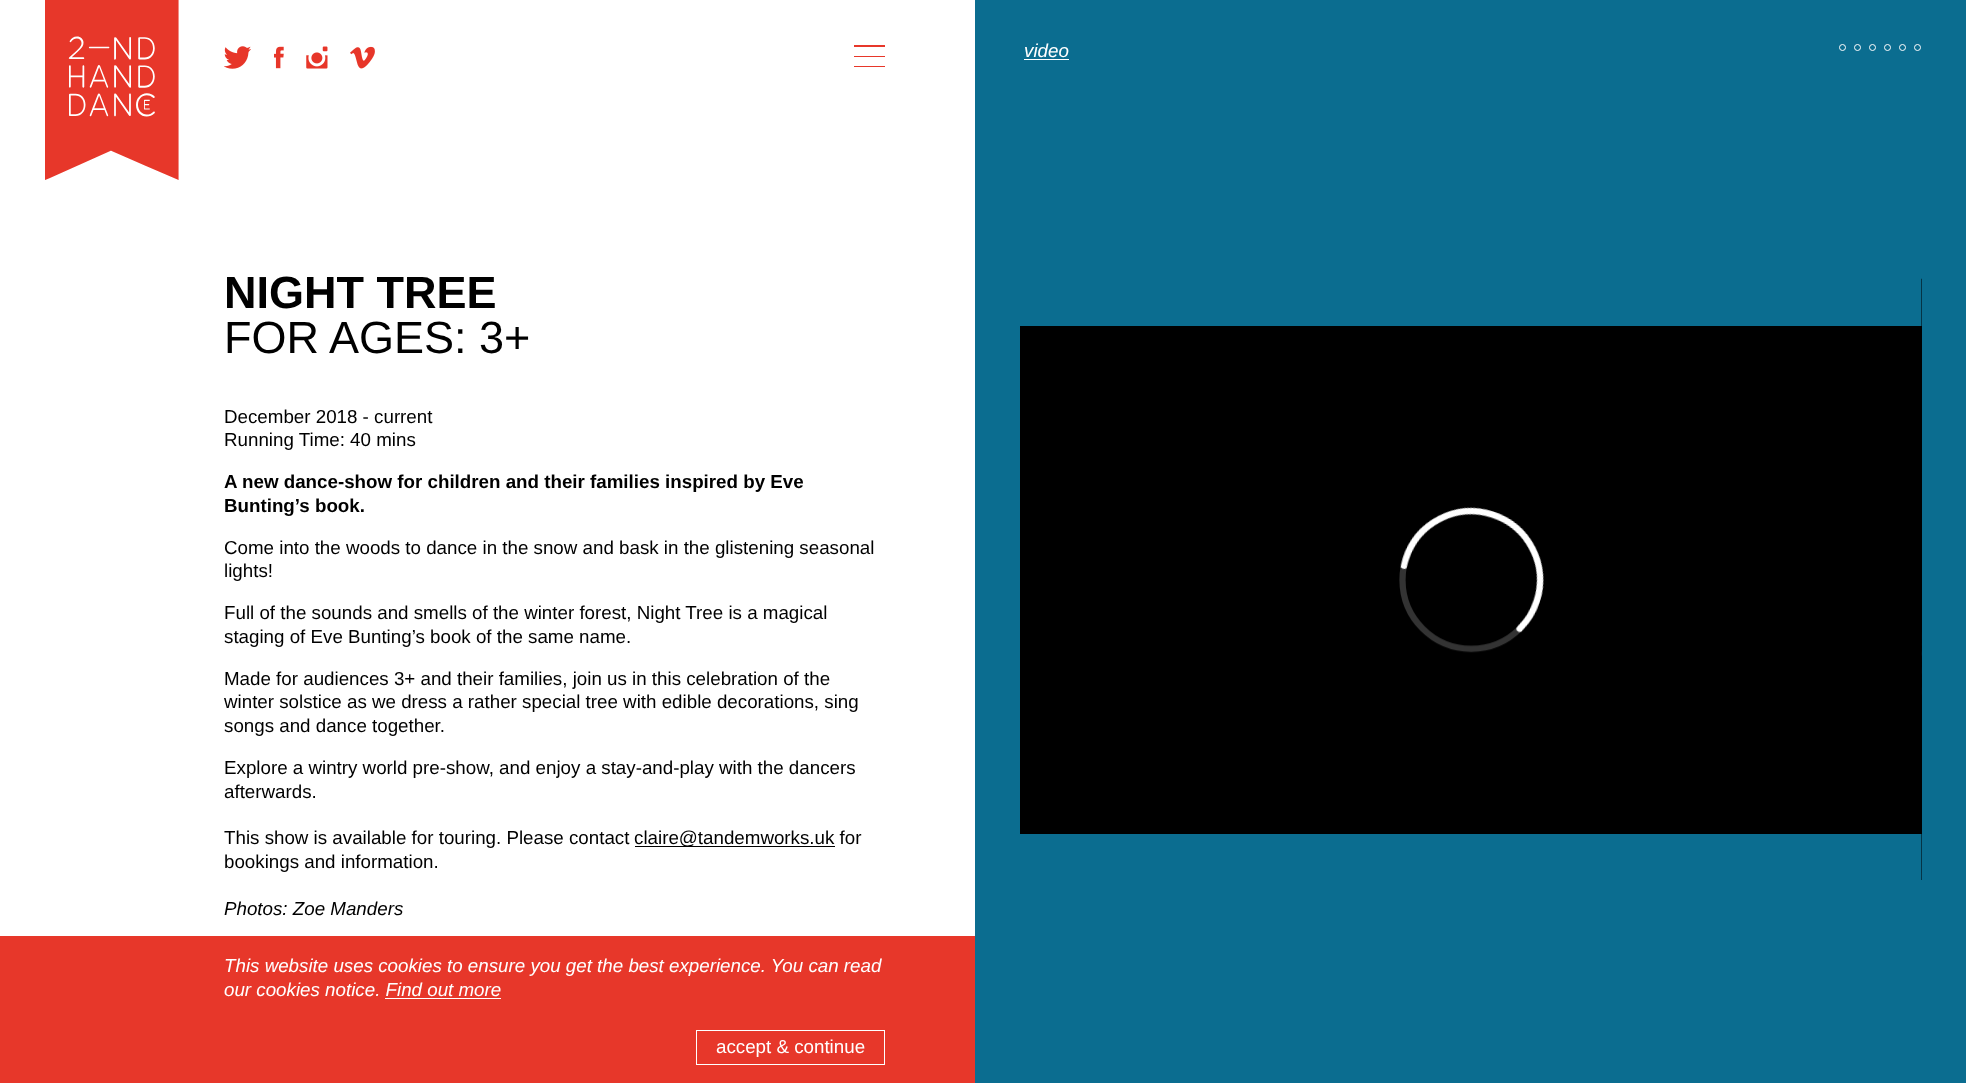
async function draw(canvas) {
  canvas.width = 1966
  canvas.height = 1083
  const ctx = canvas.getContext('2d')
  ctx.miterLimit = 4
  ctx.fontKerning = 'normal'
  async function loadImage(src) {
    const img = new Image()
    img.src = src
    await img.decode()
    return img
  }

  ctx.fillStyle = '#fff'
  ctx.fillRect(0, 0, 1966, 1083)
  ctx.drawImage(await loadImage('image0.png'), 45, 0, 134, 180)
  ctx.drawImage(await loadImage('image1.png'), 224, 46, 27, 23)
  ctx.drawImage(await loadImage('image2.png'), 274, 46, 10, 23)
  ctx.drawImage(await loadImage('image3.png'), 306, 46, 22, 23)
  ctx.drawImage(await loadImage('image4.png'), 350, 46, 25, 23)
  ctx.fillStyle = '#e7372a'
  ctx.fillRect(854, 45, 31, 2)
  ctx.fillRect(854, 56, 31, 1)
  ctx.fillRect(854, 66, 31, 1)
  ctx.fillStyle = '#0b6d90'
  ctx.fillRect(975, 0, 991, 1083)
  ctx.font = 'italic 18.75px Liberation Sans'
  ctx.fillStyle = '#fff'
  ctx.fillText('video', 1024, 57)
  ctx.fillRect(1024, 59, 45, 1)
  ctx.beginPath()
  ctx.arc(1842.5, 47.5, 3, 0, 2 * Math.PI)
  ctx.strokeStyle = '#fff'
  ctx.stroke()
  ctx.beginPath()
  ctx.arc(1857.5, 47.5, 3, 0, 2 * Math.PI)
  ctx.stroke()
  ctx.beginPath()
  ctx.arc(1872.5, 47.5, 3, 0, 2 * Math.PI)
  ctx.stroke()
  ctx.beginPath()
  ctx.arc(1887.5, 47.5, 3, 0, 2 * Math.PI)
  ctx.stroke()
  ctx.beginPath()
  ctx.arc(1902.5, 47.5, 3, 0, 2 * Math.PI)
  ctx.stroke()
  ctx.beginPath()
  ctx.arc(1917.5, 47.5, 3, 0, 2 * Math.PI)
  ctx.stroke()
  ctx.drawImage(await loadImage('image6.png'), 1020, 326, 902, 508)
  ctx.drawImage(await loadImage('image5.png'), 1921, 278, 1, 602)
  ctx.font = 'bold 45px Liberation Sans'
  ctx.fillStyle = '#000'
  ctx.fillText('NIGHT TREE', 224, 308)
  ctx.font = '45px Liberation Sans'
  ctx.fillText('FOR AGES: 3+', 224, 353)
  ctx.font = '18.75px Liberation Sans'
  ctx.fillText('December 2018 - current', 224, 423)
  ctx.fillText('Running Time: 40 mins', 224, 446)
  ctx.font = 'bold 18.75px Liberation Sans'
  ctx.fillText('A new dance-show for children and their families inspired by Eve', 224, 488)
  ctx.fillText('Bunting’s book.', 224, 512)
  ctx.font = '18.75px Liberation Sans'
  ctx.fillText('Come into the woods to dance in the snow and bask in the glistening seasonal', 224, 554)
  ctx.fillText('lights!', 224, 577)
  ctx.fillText('Full of the sounds and smells of the winter forest, Night Tree is a magical', 224, 619)
  ctx.fillText('staging of Eve Bunting’s book of the same name.', 224, 643)
  ctx.fillText('Made for audiences 3+ and their families, join us in this celebration of the', 224, 685)
  ctx.fillText('winter solstice as we dress a rather special tree with edible decorations, sing', 224, 708)
  ctx.fillText('songs and dance together.', 224, 732)
  ctx.fillText('Explore a wintry world pre-show, and enjoy a stay-and-play with the dancers', 224, 774)
  ctx.fillText('afterwards.', 224, 798)
  ctx.fillText('This show is available for touring. Please contact', 224, 844)
  ctx.fillRect(635, 846, 200, 1)
  ctx.fillText('claire@tandemworks.uk for', 634, 844)
  ctx.fillText('bookings and information.', 224, 868)
  ctx.font = 'italic 18.75px Liberation Sans'
  ctx.fillText('Photos: Zoe Manders', 224, 915)
  ctx.fillStyle = '#e7372a'
  ctx.fillRect(0, 936, 975, 147)
  ctx.fillStyle = '#fff'
  ctx.fillText('This website uses cookies to ensure you get the best experience. You can read', 224, 972)
  ctx.fillText('our cookies notice. Find out more', 224, 996)
  ctx.fillRect(385, 998, 116, 1)
  ctx.strokeRect(696.5, 1030.5, 188, 34)
  ctx.font = '18.75px Liberation Sans'
  ctx.fillText('accept & continue', 716, 1053)
}

draw(document.querySelector('canvas'))
